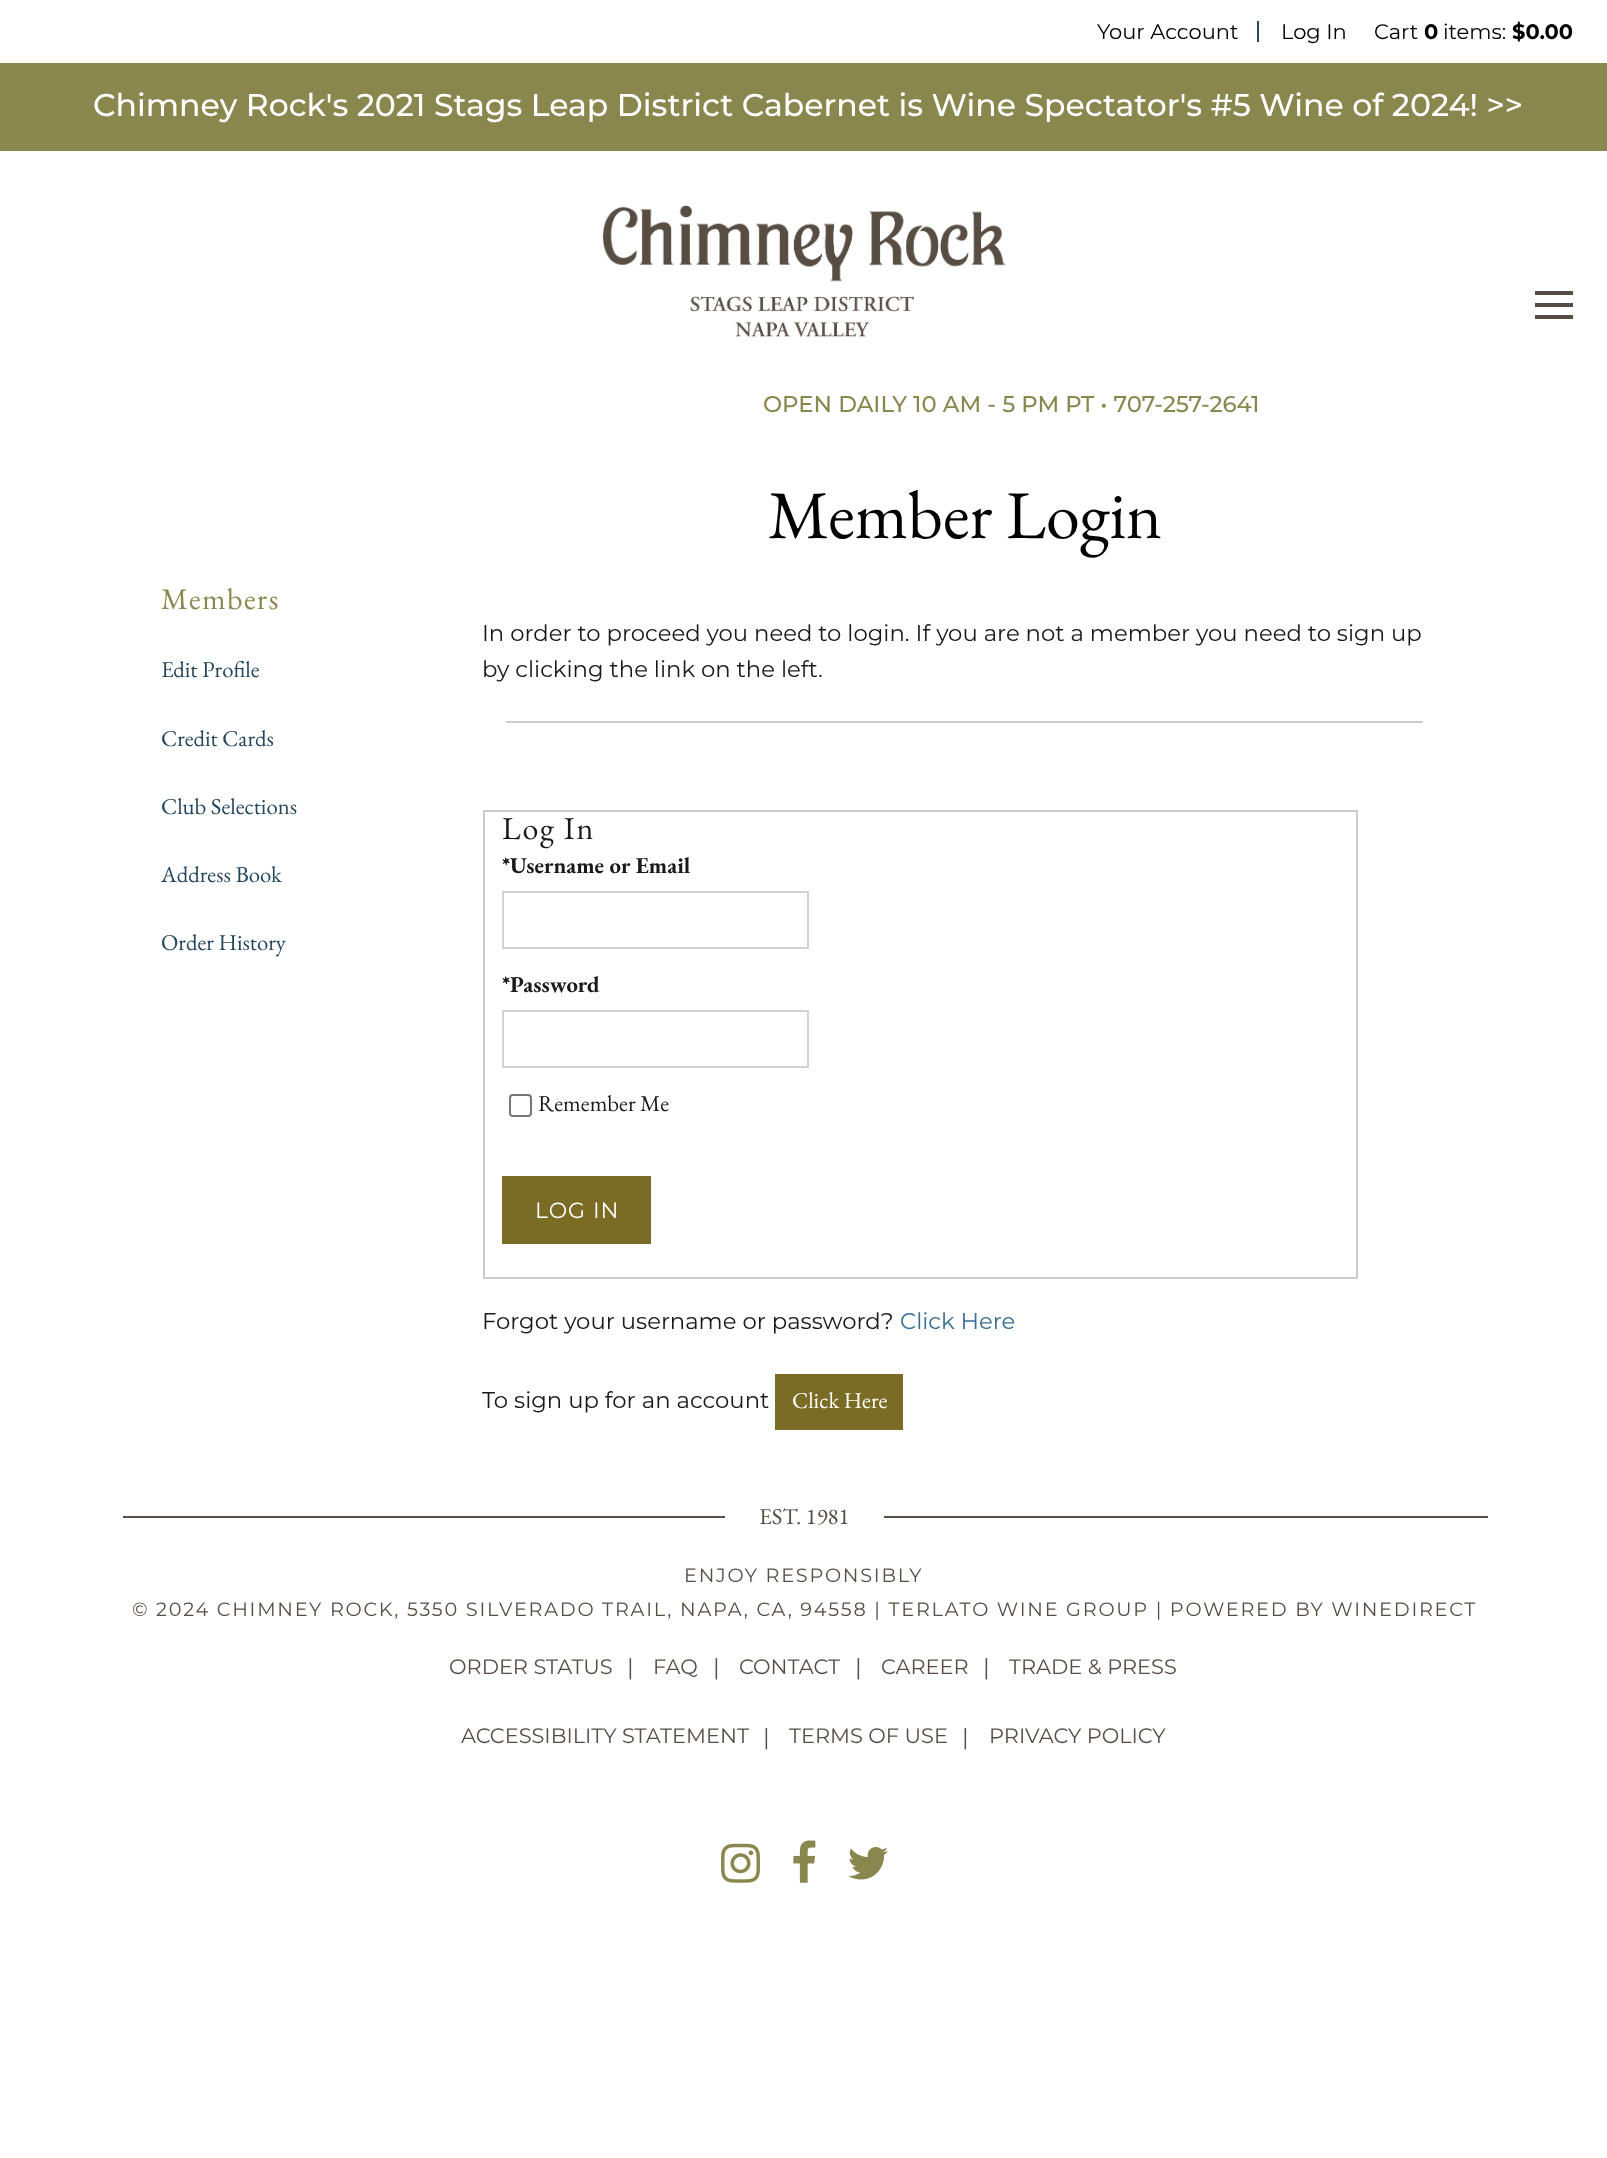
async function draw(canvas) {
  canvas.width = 1607
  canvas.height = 2158
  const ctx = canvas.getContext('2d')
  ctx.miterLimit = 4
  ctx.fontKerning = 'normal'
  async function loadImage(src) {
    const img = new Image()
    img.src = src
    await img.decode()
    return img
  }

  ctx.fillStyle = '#fff'
  ctx.fillRect(0, 0, 1607, 2158)
  ctx.fillStyle = '#24475e'
  ctx.fillRect(1257, 21, 2, 21)
  ctx.font = '21px Montserrat'
  ctx.fillStyle = '#000'
  ctx.fillText('Your Account', 1097, 39)
  ctx.fillText('Log In', 1281, 39)
  ctx.fillText('Cart', 1374, 39)
  ctx.font = 'bold 21px Montserrat'
  ctx.fillText('0', 1424, 39)
  ctx.font = '21px Montserrat'
  ctx.fillText('items:', 1443, 39)
  ctx.font = 'bold 21px Montserrat'
  ctx.fillText('$0.00', 1512, 39)
  ctx.fillStyle = '#89874e'
  ctx.fillRect(0, 63, 1607, 88)
  ctx.font = '500 31.5px Montserrat'
  ctx.fillStyle = '#fff'
  ctx.fillText('Chimney Rock\'s 2021 Stags Leap District Cabernet is Wine Spectator\'s #5 Wine of 2024! >>', 93, 116)
  ctx.drawImage(await loadImage('image0.png'), 602, 205, 404, 133)
  ctx.fillStyle = '#584d44'
  ctx.fillRect(1535, 291, 38, 4)
  ctx.fillRect(1535, 303, 38, 4)
  ctx.fillRect(1535, 315, 38, 4)
  ctx.font = '500 22.75px Montserrat'
  ctx.fillStyle = '#89874e'
  ctx.fillText('OPEN DAILY 10 AM - 5 PM PT • 707-257-2641', 763, 412)
  ctx.letterSpacing = '1.5px'
  ctx.font = '30px EB Garamond'
  ctx.fillText('Members', 161, 609)
  ctx.letterSpacing = '0px'
  ctx.font = '22.75px EB Garamond'
  ctx.fillStyle = '#24475e'
  ctx.fillText('Edit Profile', 161, 677)
  ctx.fillText('Credit Cards', 161, 746)
  ctx.fillText('Club Selections', 161, 814)
  ctx.fillText('Address Book', 161, 882)
  ctx.fillText('Order History', 161, 950)
  ctx.font = '68.25px EB Garamond'
  ctx.fillStyle = '#000'
  ctx.fillText('Member Login', 768, 538)
  ctx.font = '22.75px Montserrat'
  ctx.fillStyle = '#191919'
  ctx.fillText('In order to proceed you need to login. If you are not a member you need to sign up', 482, 641)
  ctx.fillText('by clicking the link on the left.', 482, 677)
  ctx.fillStyle = '#ccc'
  ctx.fillRect(506, 721, 917, 2)
  ctx.strokeStyle = '#ccc'
  ctx.lineWidth = 2
  ctx.strokeRect(484, 811, 873, 467)
  ctx.letterSpacing = '1.75px'
  ctx.font = '32px EB Garamond'
  ctx.fillStyle = '#191919'
  ctx.fillText('Log In', 502, 839)
  ctx.letterSpacing = '0px'
  ctx.font = 'bold 22.75px EB Garamond'
  ctx.fillText('*Username or Email', 502, 873)
  ctx.strokeStyle = '#d0d3d4'
  ctx.strokeRect(503, 892, 305, 56)
  ctx.fillText('*Password', 502, 992)
  ctx.strokeRect(503, 1011, 305, 56)
  ctx.beginPath()
  ctx.roundRect(510, 1095, 21, 21, 3)
  ctx.strokeStyle = '#767676'
  ctx.stroke()
  ctx.font = '22.75px EB Garamond'
  ctx.fillText('Remember Me', 538, 1111)
  ctx.fillStyle = '#7b6c25'
  ctx.fillRect(502, 1176, 149, 68)
  ctx.letterSpacing = '1px'
  ctx.font = '22px Montserrat'
  ctx.fillStyle = '#fff'
  ctx.fillText('LOG IN', 535, 1218)
  ctx.letterSpacing = '0px'
  ctx.font = '22.75px Montserrat'
  ctx.fillStyle = '#191919'
  ctx.fillText('Forgot your username or password?', 482, 1329)
  ctx.fillStyle = '#386f93'
  ctx.fillText('Click Here', 900, 1329)
  ctx.fillStyle = '#191919'
  ctx.fillText('To sign up for an account', 482, 1408)
  ctx.fillStyle = '#7b6c25'
  ctx.fillRect(775, 1374, 128, 56)
  ctx.font = '22.75px EB Garamond'
  ctx.fillStyle = '#fff'
  ctx.fillText('Click Here', 792, 1408)
  ctx.fillStyle = '#584d44'
  ctx.fillRect(123, 1516, 1365, 2)
  ctx.fillStyle = '#fff'
  ctx.fillRect(725, 1516, 159, 2)
  ctx.fillStyle = '#584d44'
  ctx.fillText('EST. 1981', 759, 1524)
  ctx.letterSpacing = '1.75px'
  ctx.font = '19.25px Montserrat'
  ctx.fillText('ENJOY RESPONSIBLY', 684, 1582)
  ctx.fillText('© 2024 CHIMNEY ROCK, 5350 SILVERADO TRAIL, NAPA, CA, 94558 | TERLATO WINE GROUP | POWERED BY WINEDIRECT', 132, 1616)
  ctx.letterSpacing = '0px'
  ctx.font = '20.9px Montserrat'
  ctx.fillText('ORDER STATUS', 449, 1674)
  ctx.font = '22.75px Montserrat'
  ctx.fillText('|', 627, 1675)
  ctx.font = '20.9px Montserrat'
  ctx.fillText('FAQ', 653, 1674)
  ctx.font = '22.75px Montserrat'
  ctx.fillText('|', 713, 1675)
  ctx.font = '20.9px Montserrat'
  ctx.fillText('CONTACT', 739, 1674)
  ctx.font = '22.75px Montserrat'
  ctx.fillText('|', 855, 1675)
  ctx.font = '20.9px Montserrat'
  ctx.fillText('CAREER', 881, 1674)
  ctx.font = '22.75px Montserrat'
  ctx.fillText('|', 983, 1675)
  ctx.font = '20.9px Montserrat'
  ctx.fillText('TRADE & PRESS', 1009, 1674)
  ctx.fillText('ACCESSIBILITY STATEMENT', 461, 1743)
  ctx.font = '22.75px Montserrat'
  ctx.fillText('|', 763, 1745)
  ctx.font = '20.9px Montserrat'
  ctx.fillText('TERMS OF USE', 789, 1743)
  ctx.font = '22.75px Montserrat'
  ctx.fillText('|', 962, 1745)
  ctx.font = '20.9px Montserrat'
  ctx.fillText('PRIVACY POLICY', 989, 1743)
  ctx.drawImage(await loadImage('image1.png'), 721, 1843, 39, 40)
  ctx.drawImage(await loadImage('image2.png'), 793, 1840, 23, 43)
  ctx.drawImage(await loadImage('image3.png'), 848, 1847, 40, 33)
}

draw(document.querySelector('canvas'))
